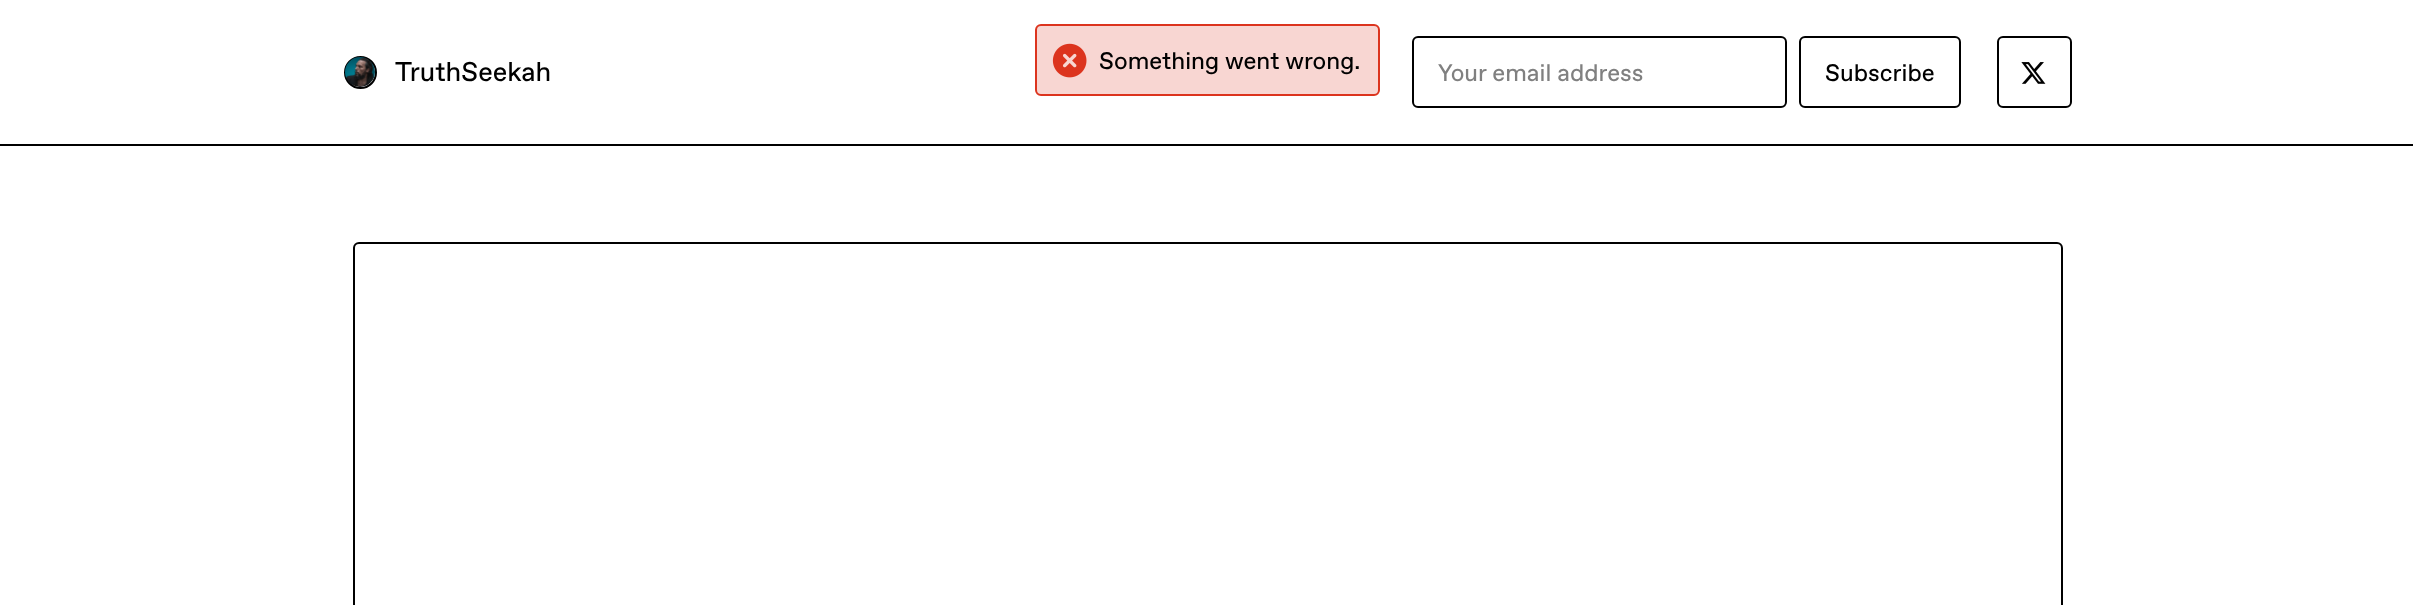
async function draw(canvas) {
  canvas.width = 2413
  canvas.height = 605
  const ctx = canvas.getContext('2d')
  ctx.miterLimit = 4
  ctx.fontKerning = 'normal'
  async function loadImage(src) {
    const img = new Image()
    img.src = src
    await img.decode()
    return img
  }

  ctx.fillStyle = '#fff'
  ctx.fillRect(0, 0, 2413, 605)
  ctx.fillStyle = '#f8d6d2'
  ctx.beginPath()
  ctx.roundRect(1036, 25, 343, 70, 5)
  ctx.fill()
  ctx.strokeStyle = '#dc341e'
  ctx.lineWidth = 2
  ctx.stroke()
  ctx.drawImage(await loadImage('image0.png'), 1052, 43, 35, 35)
  ctx.font = '24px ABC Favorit'
  ctx.fillStyle = '#000'
  ctx.fillText('Something went wrong.', 1099, 69)
  ctx.fillRect(0, 144, 2413, 2)
  ctx.beginPath()
  ctx.arc(360.5, 72.5, 15.5, 0, 2 * Math.PI)
  ctx.strokeStyle = '#000'
  ctx.stroke()
  ctx.drawImage(await loadImage('image1.png'), 345, 57, 30, 30)
  ctx.font = '27px ABC Favorit'
  ctx.fillText('TruthSeekah', 395, 81)
  ctx.beginPath()
  ctx.roundRect(1413, 37, 373, 70, 5)
  ctx.stroke()
  ctx.font = '24px ABC Favorit'
  ctx.fillStyle = '#808080'
  ctx.fillText('Your email address', 1438, 81)
  ctx.beginPath()
  ctx.roundRect(1800, 37, 160, 70, 5)
  ctx.stroke()
  ctx.fillStyle = '#000'
  ctx.fillText('Subscribe', 1825, 81)
  ctx.beginPath()
  ctx.roundRect(1998, 37, 73, 70, 5)
  ctx.stroke()
  ctx.drawImage(await loadImage('image2.png'), 2021, 62, 25, 22)
  ctx.beginPath()
  ctx.roundRect(354, 243, 1708, 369, 5)
  ctx.stroke()
}

draw(document.querySelector('canvas'))
